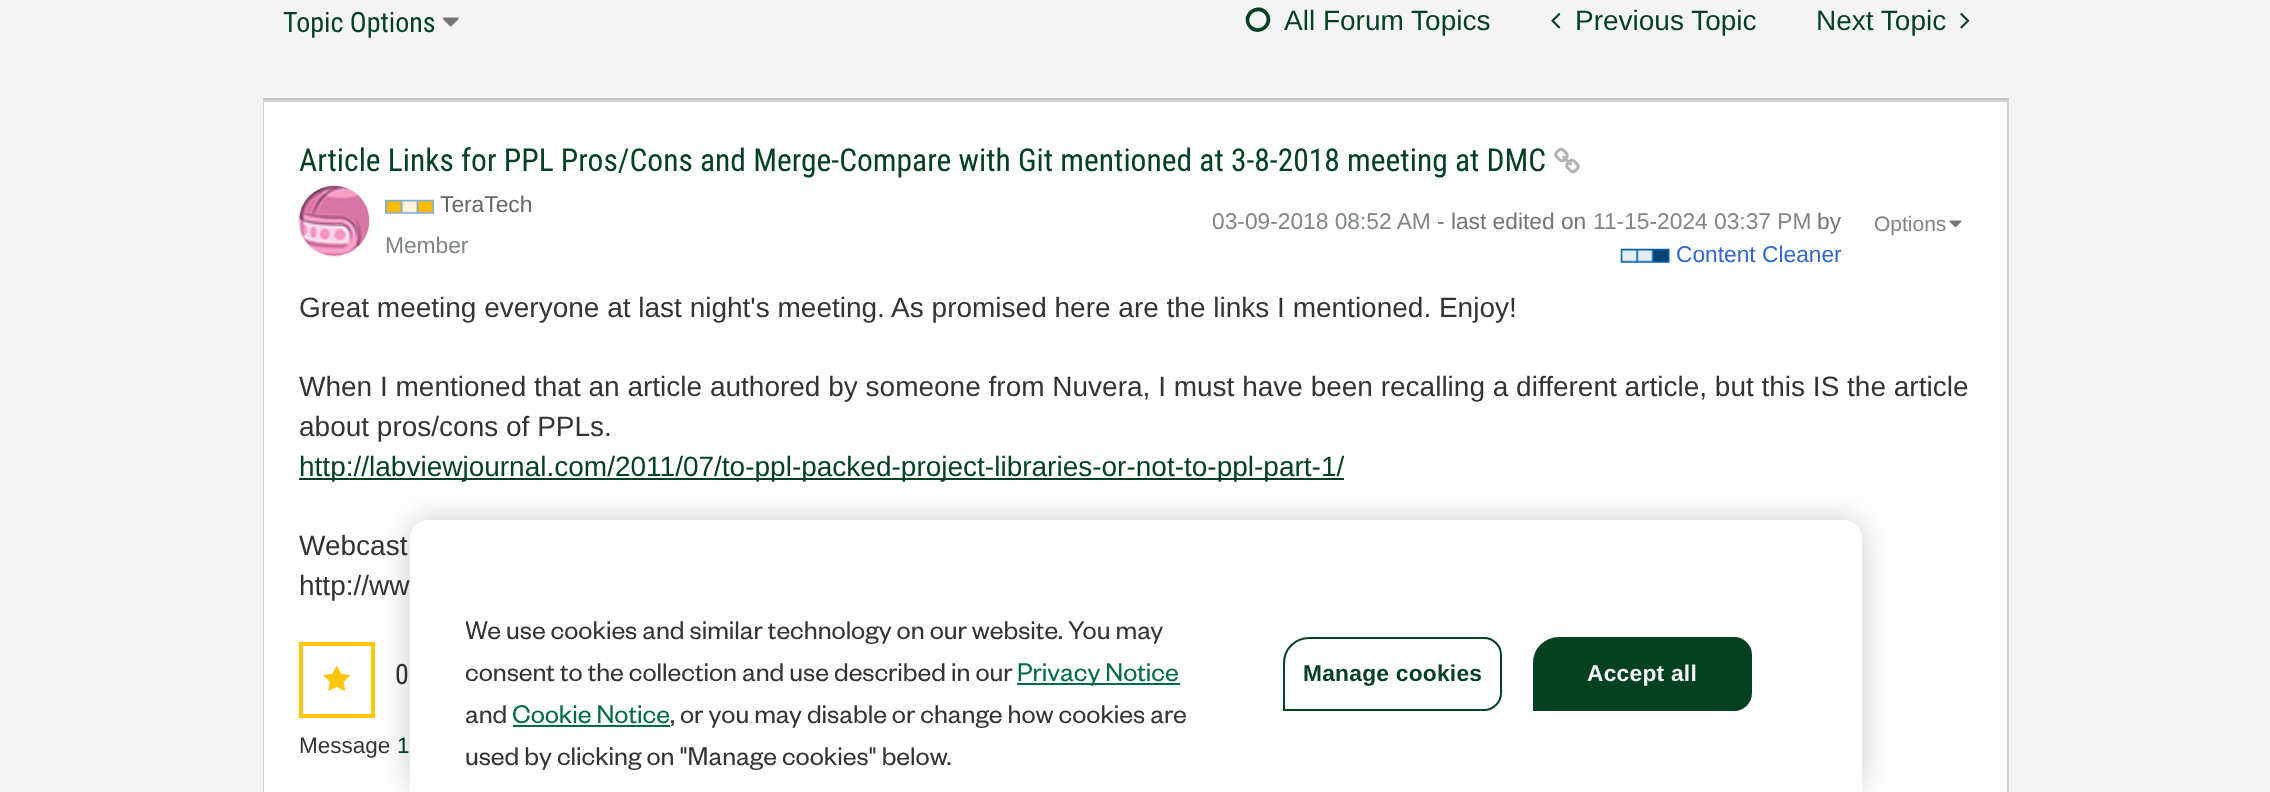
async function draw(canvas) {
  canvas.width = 2270
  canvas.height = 792
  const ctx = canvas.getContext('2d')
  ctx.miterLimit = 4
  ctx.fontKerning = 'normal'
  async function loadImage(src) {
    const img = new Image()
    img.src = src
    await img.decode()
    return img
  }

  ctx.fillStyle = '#f4f4f4'
  ctx.fillRect(0, 0, 2270, 792)
  ctx.font = '28px Roboto Condensed'
  ctx.fillStyle = '#044123'
  ctx.fillText('Topic Options', 283, 32)
  ctx.drawImage(await loadImage('image0.png'), 442, 17, 17, 10)
  ctx.beginPath()
  ctx.moveTo(1262.5, 12.5)
  ctx.bezierCurveTo(1252.5, 7, 1244, 21.5, 1253.5, 27)
  ctx.bezierCurveTo(1263.5, 32.5, 1272, 18, 1262.5, 12.5)
  ctx.closePath()
  ctx.moveTo(1268.5, 13.5)
  ctx.bezierCurveTo(1276.5, 27.5, 1255.5, 39.5, 1247.5, 26)
  ctx.bezierCurveTo(1239.5, 12, 1260.5, 0, 1268.5, 13.5)
  ctx.closePath()
  ctx.fill()
  ctx.font = '28px Liberation Sans'
  ctx.fillText('All Forum Topics', 1284, 30)
  ctx.drawImage(await loadImage('image1.png'), 1551, 13, 10, 16)
  ctx.fillText('Previous Topic', 1575, 30)
  ctx.fillText('Next Topic', 1816, 30)
  ctx.drawImage(await loadImage('image2.png'), 1960, 13, 10, 16)
  ctx.fillStyle = '#c4c4c4'
  ctx.fillRect(263, 98, 1746, 2)
  ctx.strokeStyle = '#d1d1d1'
  ctx.lineWidth = 2
  ctx.strokeRect(264, 101, 1744, 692)
  ctx.fillStyle = '#fff'
  ctx.fillRect(264, 102, 1743, 690)
  ctx.font = '31.5px Roboto Condensed'
  ctx.fillStyle = '#044123'
  ctx.fillText('Article Links for PPL Pros/Cons and Merge-Compare with Git mentioned at 3-8-2018 meeting at DMC', 299, 171)
  ctx.drawImage(await loadImage('image3.png'), 1554, 147, 26, 27)
  ctx.fillStyle = '#c4c4c4'
  ctx.filter = 'blur(1px)'
  ctx.beginPath()
  ctx.roundRect(299, 186, 70, 70, 35)
  ctx.fill()
  ctx.filter = 'none'
  ctx.drawImage(await loadImage('image4.png'), 299, 185, 71, 71)
  ctx.drawImage(await loadImage('image5.png'), 385, 199, 49, 15)
  ctx.font = '22.75px Liberation Sans'
  ctx.fillStyle = '#666'
  ctx.fillText('TeraTech', 440, 212)
  ctx.fillStyle = '#808587'
  ctx.fillText('Member', 385, 253)
  ctx.fillText('03-09-2018 08:52 AM', 1212, 229)
  ctx.fillStyle = '#747474'
  ctx.fillText('- last edited on', 1437, 229)
  ctx.fillStyle = '#808587'
  ctx.fillText('11-15-2024 03:37 PM', 1593, 229)
  ctx.fillStyle = '#747474'
  ctx.fillText('by', 1817, 229)
  ctx.drawImage(await loadImage('image6.png'), 1620, 248, 50, 15)
  ctx.fillStyle = '#36c'
  ctx.fillText('Content Cleaner', 1676, 262)
  ctx.font = '21px Liberation Sans'
  ctx.fillStyle = '#808587'
  ctx.fillText('Options', 1874, 231)
  ctx.drawImage(await loadImage('image7.png'), 1949, 220, 13, 8)
  ctx.font = '28px Liberation Sans'
  ctx.fillStyle = '#333'
  ctx.fillText('Great meeting everyone at last night\'s meeting. As promised here are the links I mentioned. Enjoy!', 299, 317)
  ctx.fillText('When I mentioned that an article authored by someone from Nuvera, I must have been recalling a different article, but this IS the article', 299, 396)
  ctx.fillText('about pros/cons of PPLs.', 299, 436)
  ctx.fillStyle = '#044123'
  ctx.fillRect(299, 478, 1045, 2)
  ctx.fillText('http://labviewjournal.com/2011/07/to-ppl-packed-project-libraries-or-not-to-ppl-part-1/', 299, 476)
  ctx.fillStyle = '#333'
  ctx.fillText('Webcast', 299, 555)
  ctx.fillText('http://ww', 299, 595)
  ctx.strokeStyle = '#ffc60b'
  ctx.strokeRect(300, 643, 74, 74)
  ctx.strokeRect(302, 645, 70, 70)
  ctx.drawImage(await loadImage('image8.png'), 323, 666, 27, 25)
  ctx.font = '28px Roboto Condensed'
  ctx.fillText('0', 395, 684)
  ctx.font = '22.5px Liberation Sans'
  ctx.fillText('Message', 299, 753)
  ctx.fillStyle = '#044123'
  ctx.fillText('1', 397, 753)
  ctx.fillStyle = '#00000033'
  ctx.filter = 'blur(16px)'
  ctx.beginPath()
  ctx.roundRect(410, 520, 1452, 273, 18)
  ctx.fill()
  ctx.filter = 'none'
  ctx.fillStyle = '#fff'
  ctx.beginPath()
  ctx.moveTo(428, 520)
  ctx.lineTo(1844, 520)
  ctx.bezierCurveTo(1854, 520, 1862, 528, 1862, 538)
  ctx.lineTo(1862, 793)
  ctx.lineTo(410, 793)
  ctx.lineTo(410, 538)
  ctx.bezierCurveTo(410, 528, 418, 520, 428, 520)
  ctx.closePath()
  ctx.fill()
  ctx.save()
  ctx.beginPath()
  ctx.rect(466, 607, 743, 168)
  ctx.clip()
  ctx.font = '28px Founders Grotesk'
  ctx.fillStyle = '#333'
  ctx.fillText('We use cookies and similar technology on our website. You may', 465, 639)
  ctx.fillText('consent to the collection and use described in our', 465, 681)
  ctx.restore()
  ctx.fillStyle = '#006b46'
  ctx.fillRect(1017, 683, 163, 2)
  ctx.font = '28px Founders Grotesk'
  ctx.fillText('Privacy Notice', 1017, 681)
  ctx.fillStyle = '#333'
  ctx.fillText('and', 465, 723)
  ctx.fillStyle = '#006b46'
  ctx.fillText('Cookie Notice', 512, 723)
  ctx.fillRect(513, 725, 157, 2)
  ctx.fillStyle = '#333'
  ctx.fillText(', or you may disable or change how cookies are', 670, 723)
  ctx.fillText('used by clicking on "Manage cookies" below.', 465, 765)
  ctx.beginPath()
  ctx.roundRect(1284, 638, 217, 72, [25, 17, 17, 0])
  ctx.strokeStyle = '#044123'
  ctx.stroke()
  ctx.letterSpacing = '0.25px'
  ctx.font = 'bold 22.75px Liberation Sans'
  ctx.fillStyle = '#044123'
  ctx.fillText('Manage cookies', 1303, 681)
  ctx.beginPath()
  ctx.roundRect(1534, 638, 217, 72, [25, 17, 17, 0])
  ctx.fill()
  ctx.stroke()
  ctx.fillStyle = '#f4f4f4'
  ctx.fillText('Accept all', 1587, 681)
}

draw(document.querySelector('canvas'))
